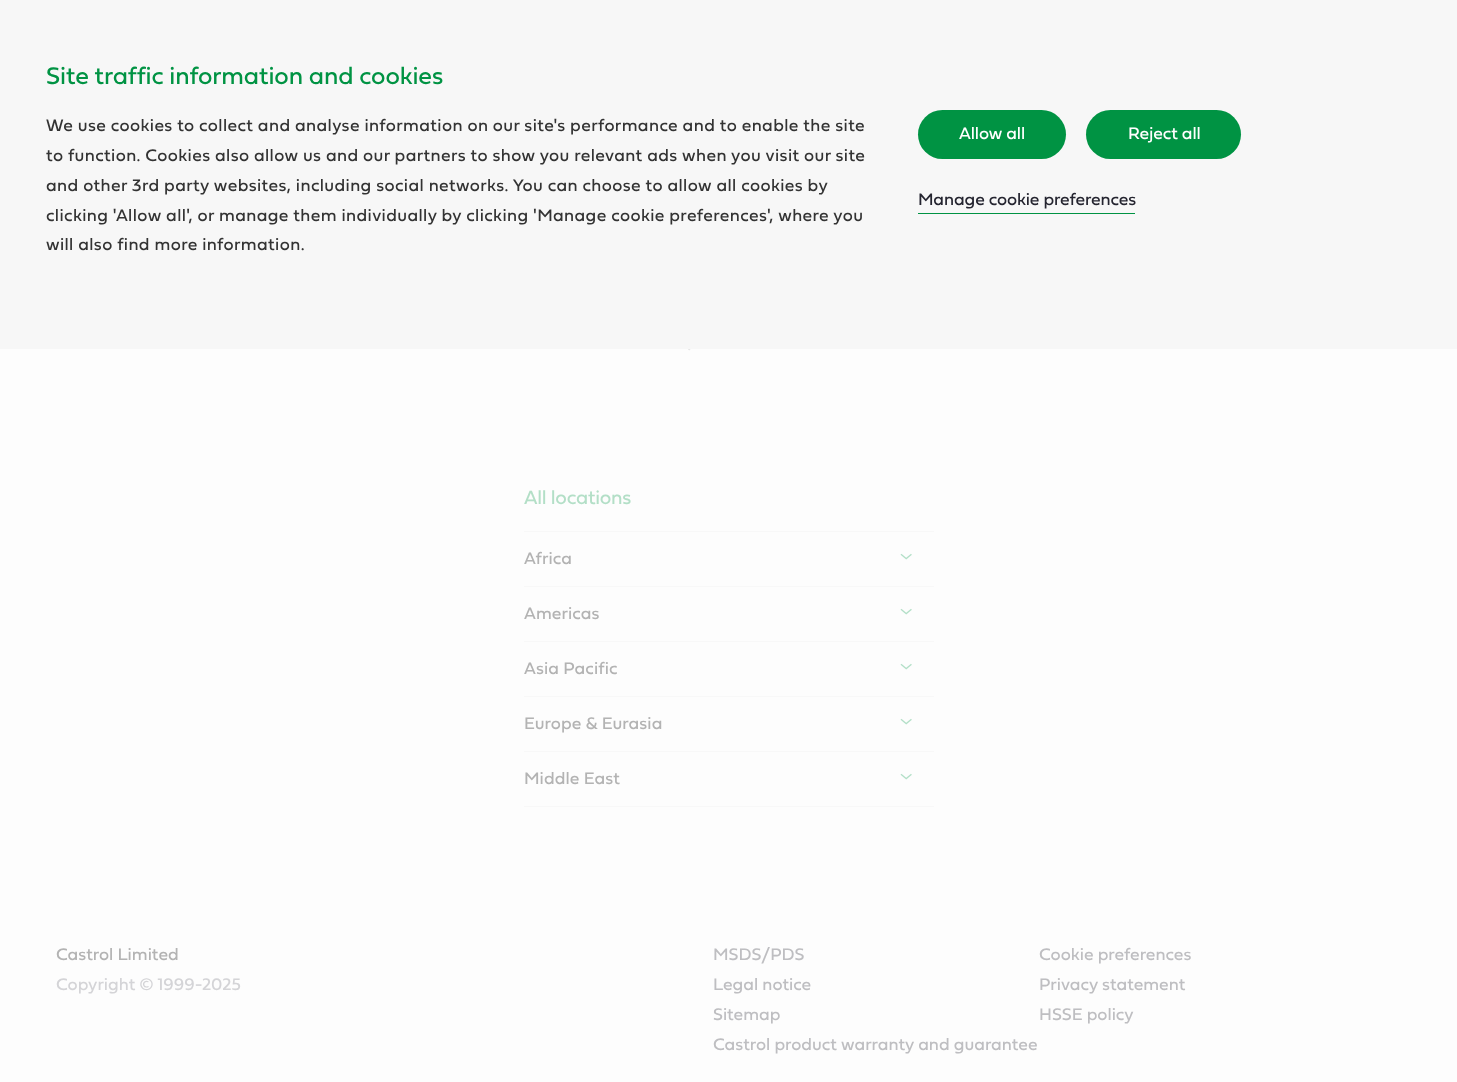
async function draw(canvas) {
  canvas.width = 1457
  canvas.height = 1082
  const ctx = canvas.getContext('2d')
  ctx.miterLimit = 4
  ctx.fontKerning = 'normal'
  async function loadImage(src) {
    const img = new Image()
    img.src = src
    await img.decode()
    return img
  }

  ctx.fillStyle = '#fdfdfd'
  ctx.fillRect(0, 0, 1457, 1082)
  ctx.fillStyle = '#f7f7f7'
  ctx.fillRect(0, 0, 1457, 349)
  ctx.letterSpacing = '-0.1px'
  ctx.font = '25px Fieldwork'
  ctx.fillStyle = '#009343'
  ctx.fillText('Site traffic information and cookies', 46, 84)
  ctx.letterSpacing = '0.38px'
  ctx.font = '17.5px Fieldwork'
  ctx.fillStyle = '#333'
  ctx.fillText('We use cookies to collect and analyse information on our site\'s performance and to enable the site', 46, 131)
  ctx.fillText('to function. Cookies also allow us and our partners to show you relevant ads when you visit our site', 46, 161)
  ctx.fillText('and other 3rd party websites, including social networks. You can choose to allow all cookies by', 46, 191)
  ctx.fillText('clicking \'Allow all\', or manage them individually by clicking \'Manage cookie preferences\', where you', 46, 221)
  ctx.fillText('will also find more information.', 46, 250)
  ctx.fillStyle = '#009343'
  ctx.beginPath()
  ctx.roundRect(918, 110, 148, 49, 24.5)
  ctx.fill()
  ctx.letterSpacing = '-0.1px'
  ctx.fillStyle = '#fff'
  ctx.fillText('Allow all', 959, 139)
  ctx.fillStyle = '#009343'
  ctx.beginPath()
  ctx.roundRect(1086, 110, 155, 49, 24.5)
  ctx.fill()
  ctx.fillStyle = '#fff'
  ctx.fillText('Reject all', 1128, 139)
  ctx.fillStyle = '#009343'
  ctx.fillRect(918, 213, 217, 1)
  ctx.fillStyle = '#252530'
  ctx.fillText('Manage cookie preferences', 918, 205)
  ctx.drawImage(await loadImage('image0.png'), 688, 349, 3, 2)
  ctx.fillStyle = '#f8f8f8'
  ctx.fillRect(524, 531, 410, 1)
  ctx.letterSpacing = '-0.25px'
  ctx.font = '20px Fieldwork'
  ctx.fillStyle = '#b3dfc7'
  ctx.fillText('All locations', 524, 504)
  ctx.fillStyle = '#f8f8f8'
  ctx.fillRect(524, 586, 410, 1)
  ctx.letterSpacing = '0.1px'
  ctx.font = '17.5px Fieldwork'
  ctx.fillStyle = '#b3b3b3'
  ctx.fillText('Africa', 524, 564)
  ctx.drawImage(await loadImage('image1.png'), 900, 553, 12, 7)
  ctx.fillStyle = '#f8f8f8'
  ctx.fillRect(524, 641, 410, 1)
  ctx.fillStyle = '#b3b3b3'
  ctx.fillText('Americas', 524, 619)
  ctx.drawImage(await loadImage('image1.png'), 900, 608, 12, 7)
  ctx.fillStyle = '#f8f8f8'
  ctx.fillRect(524, 696, 410, 1)
  ctx.fillStyle = '#b3b3b3'
  ctx.fillText('Asia Pacific', 524, 674)
  ctx.drawImage(await loadImage('image1.png'), 900, 663, 12, 7)
  ctx.fillStyle = '#f8f8f8'
  ctx.fillRect(524, 751, 410, 1)
  ctx.fillStyle = '#b3b3b3'
  ctx.fillText('Europe & Eurasia', 524, 729)
  ctx.drawImage(await loadImage('image1.png'), 900, 718, 12, 7)
  ctx.fillStyle = '#f8f8f8'
  ctx.fillRect(524, 806, 410, 1)
  ctx.fillStyle = '#b3b3b3'
  ctx.fillText('Middle East', 524, 784)
  ctx.drawImage(await loadImage('image1.png'), 900, 773, 12, 7)
  ctx.letterSpacing = '0px'
  ctx.fillText('Castrol Limited', 56, 960)
  ctx.fillStyle = '#d4d4d7'
  ctx.fillText('Copyright © 1999-2025', 56, 990)
  ctx.fillStyle = '#bebec1'
  ctx.fillText('MSDS/PDS', 713, 960)
  ctx.fillText('Cookie preferences', 1039, 960)
  ctx.fillText('Legal notice', 713, 990)
  ctx.fillText('Privacy statement', 1039, 990)
  ctx.fillText('Sitemap', 713, 1020)
  ctx.fillText('HSSE policy', 1039, 1020)
  ctx.fillText('Castrol product warranty and guarantee', 713, 1050)
}

draw(document.querySelector('canvas'))
